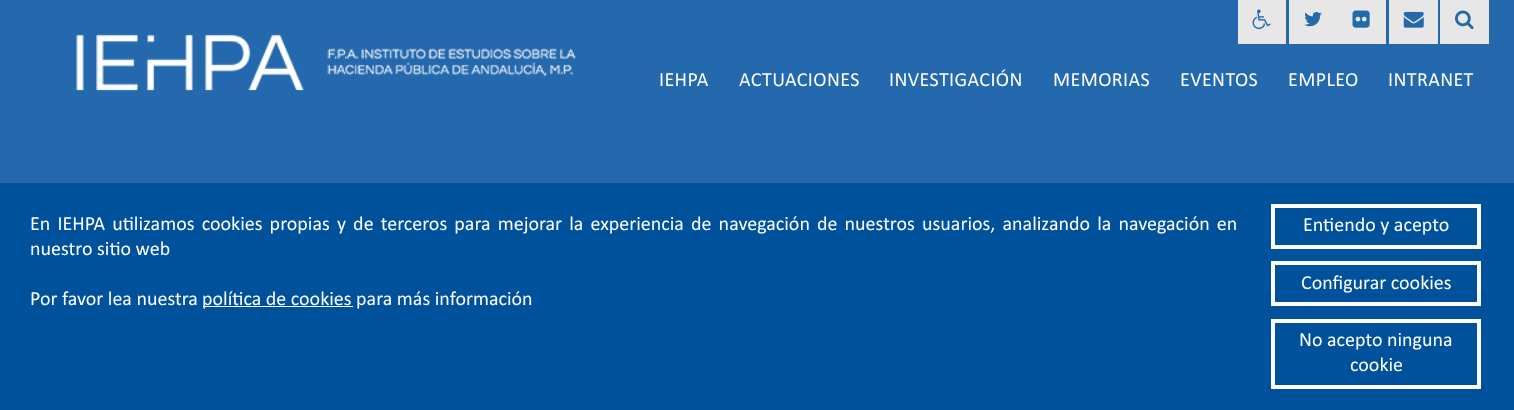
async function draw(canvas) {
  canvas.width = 1514
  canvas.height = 410
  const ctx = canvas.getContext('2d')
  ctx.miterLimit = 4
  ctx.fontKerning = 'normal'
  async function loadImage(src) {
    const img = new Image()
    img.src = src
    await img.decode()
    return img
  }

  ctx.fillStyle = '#2469ad'
  ctx.fillRect(0, 0, 1514, 410)
  ctx.drawImage(await loadImage('image0.png'), 76, 34, 500, 57)
  ctx.fillStyle = '#2469aa'
  ctx.fillRect(1286, 0, 3, 44)
  ctx.fillStyle = '#e7e7e7'
  ctx.fillRect(1238, 0, 48, 44)
  ctx.drawImage(await loadImage('image1.png'), 1252, 9, 19, 21)
  ctx.fillRect(1289, 0, 97, 44)
  ctx.drawImage(await loadImage('image2.png'), 1304, 12, 18, 15)
  ctx.fillStyle = '#2469aa'
  ctx.fillRect(1386, 0, 3, 44)
  ctx.fillStyle = '#e7e7e7'
  ctx.fillRect(1389, 0, 49, 44)
  ctx.drawImage(await loadImage('image3.png'), 1403, 11, 21, 17)
  ctx.fillStyle = '#2469aa'
  ctx.fillRect(1438, 0, 2, 44)
  ctx.fillStyle = '#e7e7e7'
  ctx.fillRect(1440, 0, 49, 44)
  ctx.drawImage(await loadImage('image4.png'), 1455, 10, 19, 20)
  ctx.drawImage(await loadImage('image5.png'), 1352, 10, 18, 18)
  ctx.letterSpacing = '0.4px'
  ctx.font = '20px Calibri'
  ctx.fillStyle = '#fff'
  ctx.fillText('IEHPA', 659, 86)
  ctx.fillText('ACTUACIONES', 739, 86)
  ctx.fillText('INVESTIGACIÓN', 889, 86)
  ctx.fillText('MEMORIAS', 1053, 86)
  ctx.fillText('EVENTOS', 1180, 86)
  ctx.fillText('EMPLEO', 1288, 86)
  ctx.fillText('INTRANET', 1388, 86)
  ctx.fillStyle = '#00519c'
  ctx.fillRect(0, 183, 1514, 227)
  ctx.letterSpacing = '0px'
  ctx.wordSpacing = '2.6px'
  ctx.fillStyle = '#fff'
  ctx.fillText('En IEHPA utilizamos cookies propias y de terceros para mejorar la experiencia de navegación de nuestros usuarios, analizando la navegación en', 30, 230)
  ctx.wordSpacing = '0px'
  ctx.fillText('nuestro sitio web', 30, 255)
  ctx.fillText('Por favor lea nuestra', 30, 305)
  ctx.fillRect(203, 306, 150, 1)
  ctx.fillText('política de cookies para más información', 202, 305)
  ctx.strokeStyle = '#fff'
  ctx.lineWidth = 4
  ctx.strokeRect(1273, 206, 206, 41)
  ctx.fillText('Entiendo y acepto', 1303, 231)
  ctx.strokeRect(1273, 263, 206, 41)
  ctx.fillText('Configurar cookies', 1301, 289)
  ctx.strokeRect(1273, 321, 206, 66)
  ctx.fillText('No acepto ninguna', 1299, 346)
  ctx.fillText('cookie', 1350, 371)
}

draw(document.querySelector('canvas'))
